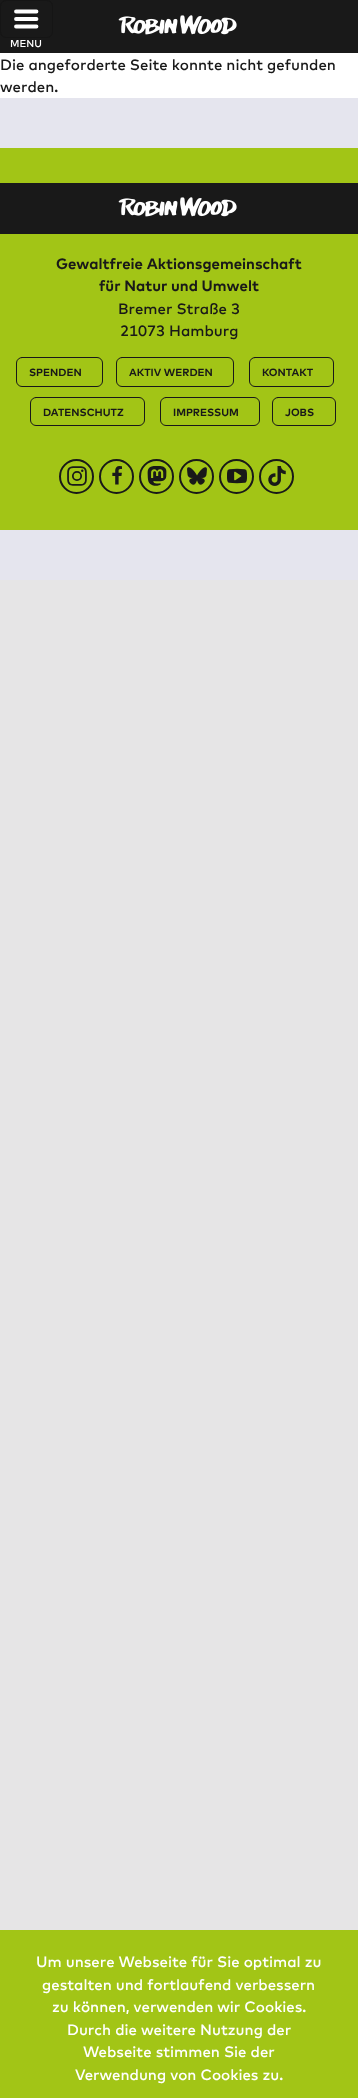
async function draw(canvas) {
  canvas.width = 358
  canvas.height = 2098
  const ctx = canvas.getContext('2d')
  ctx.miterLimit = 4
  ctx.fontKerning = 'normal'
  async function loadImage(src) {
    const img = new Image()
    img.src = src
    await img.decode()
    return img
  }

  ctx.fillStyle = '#e6e5e6'
  ctx.fillRect(0, 0, 358, 2098)
  ctx.fillStyle = '#fff'
  ctx.fillRect(0, 53, 358, 45)
  ctx.fillStyle = '#191919'
  ctx.fillRect(0, 0, 358, 53)
  ctx.drawImage(await loadImage('image0.png'), 118, 15, 119, 20)
  ctx.beginPath()
  ctx.roundRect(0.5, 0.5, 52, 37, 5.5)
  ctx.strokeStyle = '#151515'
  ctx.stroke()
  ctx.beginPath()
  ctx.moveTo(16, 11.5)
  ctx.lineTo(36.5, 11.5)
  ctx.moveTo(16, 19)
  ctx.lineTo(36.5, 19)
  ctx.moveTo(16, 26.5)
  ctx.lineTo(36.5, 26.5)
  ctx.strokeStyle = '#fff'
  ctx.lineWidth = 3.8
  ctx.lineCap = 'round'
  ctx.stroke()
  ctx.font = '500 10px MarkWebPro'
  ctx.fillStyle = '#fff'
  ctx.fillText('MENU', 10, 47)
  ctx.font = '500 15px MarkWebPro'
  ctx.fillStyle = '#191919'
  ctx.fillText('Die angeforderte Seite konnte nicht gefunden', 0, 70)
  ctx.fillText('werden.', 0, 92)
  ctx.fillStyle = '#a2c516'
  ctx.fillRect(0, 148, 358, 382)
  ctx.fillStyle = '#e5e5ee'
  ctx.fillRect(0, 98, 358, 50)
  ctx.fillRect(0, 530, 358, 50)
  ctx.fillStyle = '#191919'
  ctx.fillRect(0, 183, 358, 51)
  ctx.drawImage(await loadImage('image0.png'), 118, 197, 119, 20)
  ctx.font = 'bold 15px MarkWebPro'
  ctx.fillText('Gewaltfreie Aktionsgemeinschaft', 56, 269)
  ctx.fillText('für Natur und Umwelt', 99, 291)
  ctx.font = '500 15px MarkWebPro'
  ctx.fillText('Bremer Straße 3', 118, 314)
  ctx.fillText('21073 Hamburg', 120, 336)
  ctx.beginPath()
  ctx.roundRect(16.5, 357.5, 86, 29, 5.5)
  ctx.strokeStyle = '#191919'
  ctx.lineWidth = 1
  ctx.stroke()
  ctx.font = 'bold 10.5px MarkWebPro'
  ctx.fillText('SPENDEN', 29, 376)
  ctx.beginPath()
  ctx.roundRect(116.5, 357.5, 117, 29, 5.5)
  ctx.stroke()
  ctx.fillText('AKTIV WERDEN', 129, 376)
  ctx.beginPath()
  ctx.roundRect(249.5, 357.5, 84, 29, 5.5)
  ctx.stroke()
  ctx.fillText('KONTAKT', 262, 376)
  ctx.beginPath()
  ctx.roundRect(30.5, 397.5, 114, 28, 5.5)
  ctx.stroke()
  ctx.fillText('DATENSCHUTZ', 43, 416)
  ctx.beginPath()
  ctx.roundRect(160.5, 397.5, 99, 28, 5.5)
  ctx.stroke()
  ctx.fillText('IMPRESSUM', 173, 416)
  ctx.beginPath()
  ctx.roundRect(272.5, 397.5, 63, 28, 5.5)
  ctx.stroke()
  ctx.fillText('JOBS', 285, 416)
  ctx.beginPath()
  ctx.arc(76.5, 476.5, 16.5, 0, 2 * Math.PI)
  ctx.lineWidth = 2
  ctx.stroke()
  ctx.drawImage(await loadImage('image1.png'), 67, 466, 20, 20)
  ctx.beginPath()
  ctx.arc(116.5, 476.5, 16.5, 0, 2 * Math.PI)
  ctx.stroke()
  ctx.drawImage(await loadImage('image2.png'), 112, 466, 10, 19)
  ctx.beginPath()
  ctx.arc(156.5, 476.5, 16.5, 0, 2 * Math.PI)
  ctx.stroke()
  ctx.drawImage(await loadImage('image3.png'), 147, 466, 20, 20)
  ctx.beginPath()
  ctx.arc(196.5, 476.5, 16.5, 0, 2 * Math.PI)
  ctx.stroke()
  ctx.drawImage(await loadImage('image4.png'), 187, 467, 20, 18)
  ctx.beginPath()
  ctx.arc(236.5, 476.5, 16.5, 0, 2 * Math.PI)
  ctx.stroke()
  ctx.drawImage(await loadImage('image5.png'), 227, 468, 20, 16)
  ctx.beginPath()
  ctx.arc(276.5, 476.5, 16.5, 0, 2 * Math.PI)
  ctx.stroke()
  ctx.drawImage(await loadImage('image6.png'), 268, 466, 18, 20)
  ctx.fillStyle = '#a2c516'
  ctx.fillRect(0, 1930, 358, 168)
  ctx.font = '500 15px MarkWebPro'
  ctx.fillStyle = '#fff'
  ctx.fillText('Um unsere Webseite für Sie optimal zu', 36, 1967)
  ctx.fillText('gestalten und fortlaufend verbessern', 42, 1990)
  ctx.fillText('zu können, verwenden wir Cookies.', 52, 2012)
  ctx.fillText('Durch die weitere Nutzung der', 67, 2035)
  ctx.fillText('Webseite stimmen Sie der', 83, 2057)
  ctx.fillText('Verwendung von Cookies zu.', 75, 2080)
}

draw(document.querySelector('canvas'))
